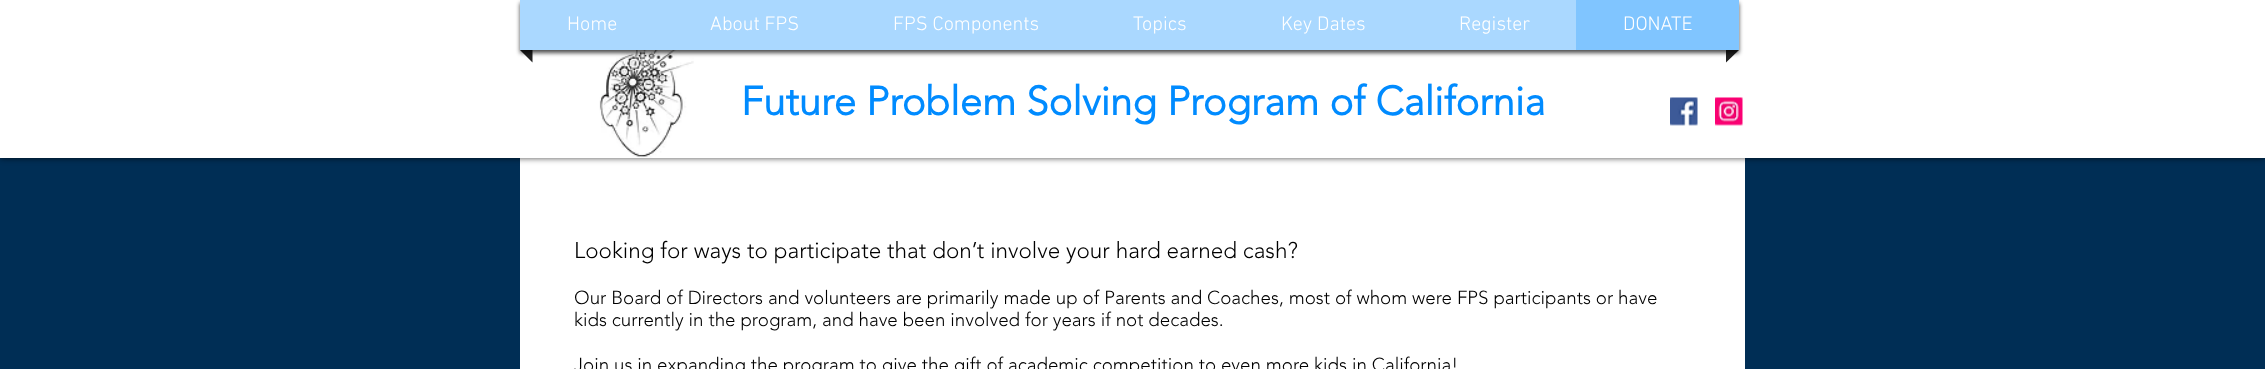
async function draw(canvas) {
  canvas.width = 2265
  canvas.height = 369
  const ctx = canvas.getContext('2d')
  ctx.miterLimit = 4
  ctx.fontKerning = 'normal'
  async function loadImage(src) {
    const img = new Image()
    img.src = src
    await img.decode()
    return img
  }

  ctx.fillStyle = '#002e55'
  ctx.fillRect(0, 0, 2265, 369)
  ctx.fillStyle = '#fff'
  ctx.fillRect(520, 158, 1225, 211)
  ctx.fillStyle = '#000000b3'
  ctx.filter = 'blur(3px)'
  ctx.beginPath()
  ctx.rect(0, 0, 2265, 158)
  ctx.fill()
  ctx.filter = 'none'
  ctx.fillStyle = '#fff'
  ctx.fillRect(0, 0, 2265, 158)
  ctx.fillStyle = '#212121'
  ctx.beginPath()
  ctx.moveTo(520, 50)
  ctx.lineTo(532.5, 50)
  ctx.lineTo(532.5, 62.5)
  ctx.closePath()
  ctx.fill()
  ctx.beginPath()
  ctx.moveTo(1726, 50)
  ctx.lineTo(1739, 50)
  ctx.lineTo(1726, 62.5)
  ctx.closePath()
  ctx.fill()
  ctx.drawImage(await loadImage('image0.png'), 599, 50, 95, 108)
  ctx.fillStyle = '#000000b3'
  ctx.filter = 'blur(2px)'
  ctx.beginPath()
  ctx.rect(520, 3, 1219, 50)
  ctx.fill()
  ctx.filter = 'none'
  ctx.fillStyle = '#aad8ff'
  ctx.fillRect(520, 0, 1056, 50)
  ctx.font = '300 20px "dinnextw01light"'
  ctx.fillStyle = '#fff'
  ctx.fillText('Home', 567, 30)
  ctx.fillText('About FPS', 710, 30)
  ctx.fillText('FPS Components', 893, 30)
  ctx.fillText('Topics', 1133, 30)
  ctx.fillText('Key Dates', 1281, 30)
  ctx.fillText('Register', 1459, 30)
  ctx.fillStyle = '#80c5ff'
  ctx.fillRect(1576, 0, 163, 50)
  ctx.fillStyle = '#fff'
  ctx.fillText('DONATE', 1623, 30)
  ctx.font = 'bold 40px "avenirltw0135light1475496"'
  ctx.fillStyle = '#008bff'
  ctx.fillText('Future Problem Solving Program of California', 741, 115)
  ctx.drawImage(await loadImage('image1.png'), 1670, 97, 28, 29)
  ctx.drawImage(await loadImage('image2.png'), 1715, 97, 28, 29)
  ctx.font = '300 22.5px "avenirltw0135light1475496"'
  ctx.fillStyle = '#000'
  ctx.fillText('Looking for ways to participate that don’t involve your hard earned cash?', 574, 258)
  ctx.font = '300 18.75px "avenirltw0135light1475496"'
  ctx.fillText('Our Board of Directors and volunteers are primarily made up of Parents and Coaches, most of whom were FPS participants or have', 574, 304)
  ctx.fillText('kids currently in the program, and have been involved for years if not decades.', 574, 326)
  ctx.fillText('Join us in expanding the program to give the gift of academic competition to even more kids in California!', 574, 371)
}

draw(document.querySelector('canvas'))
